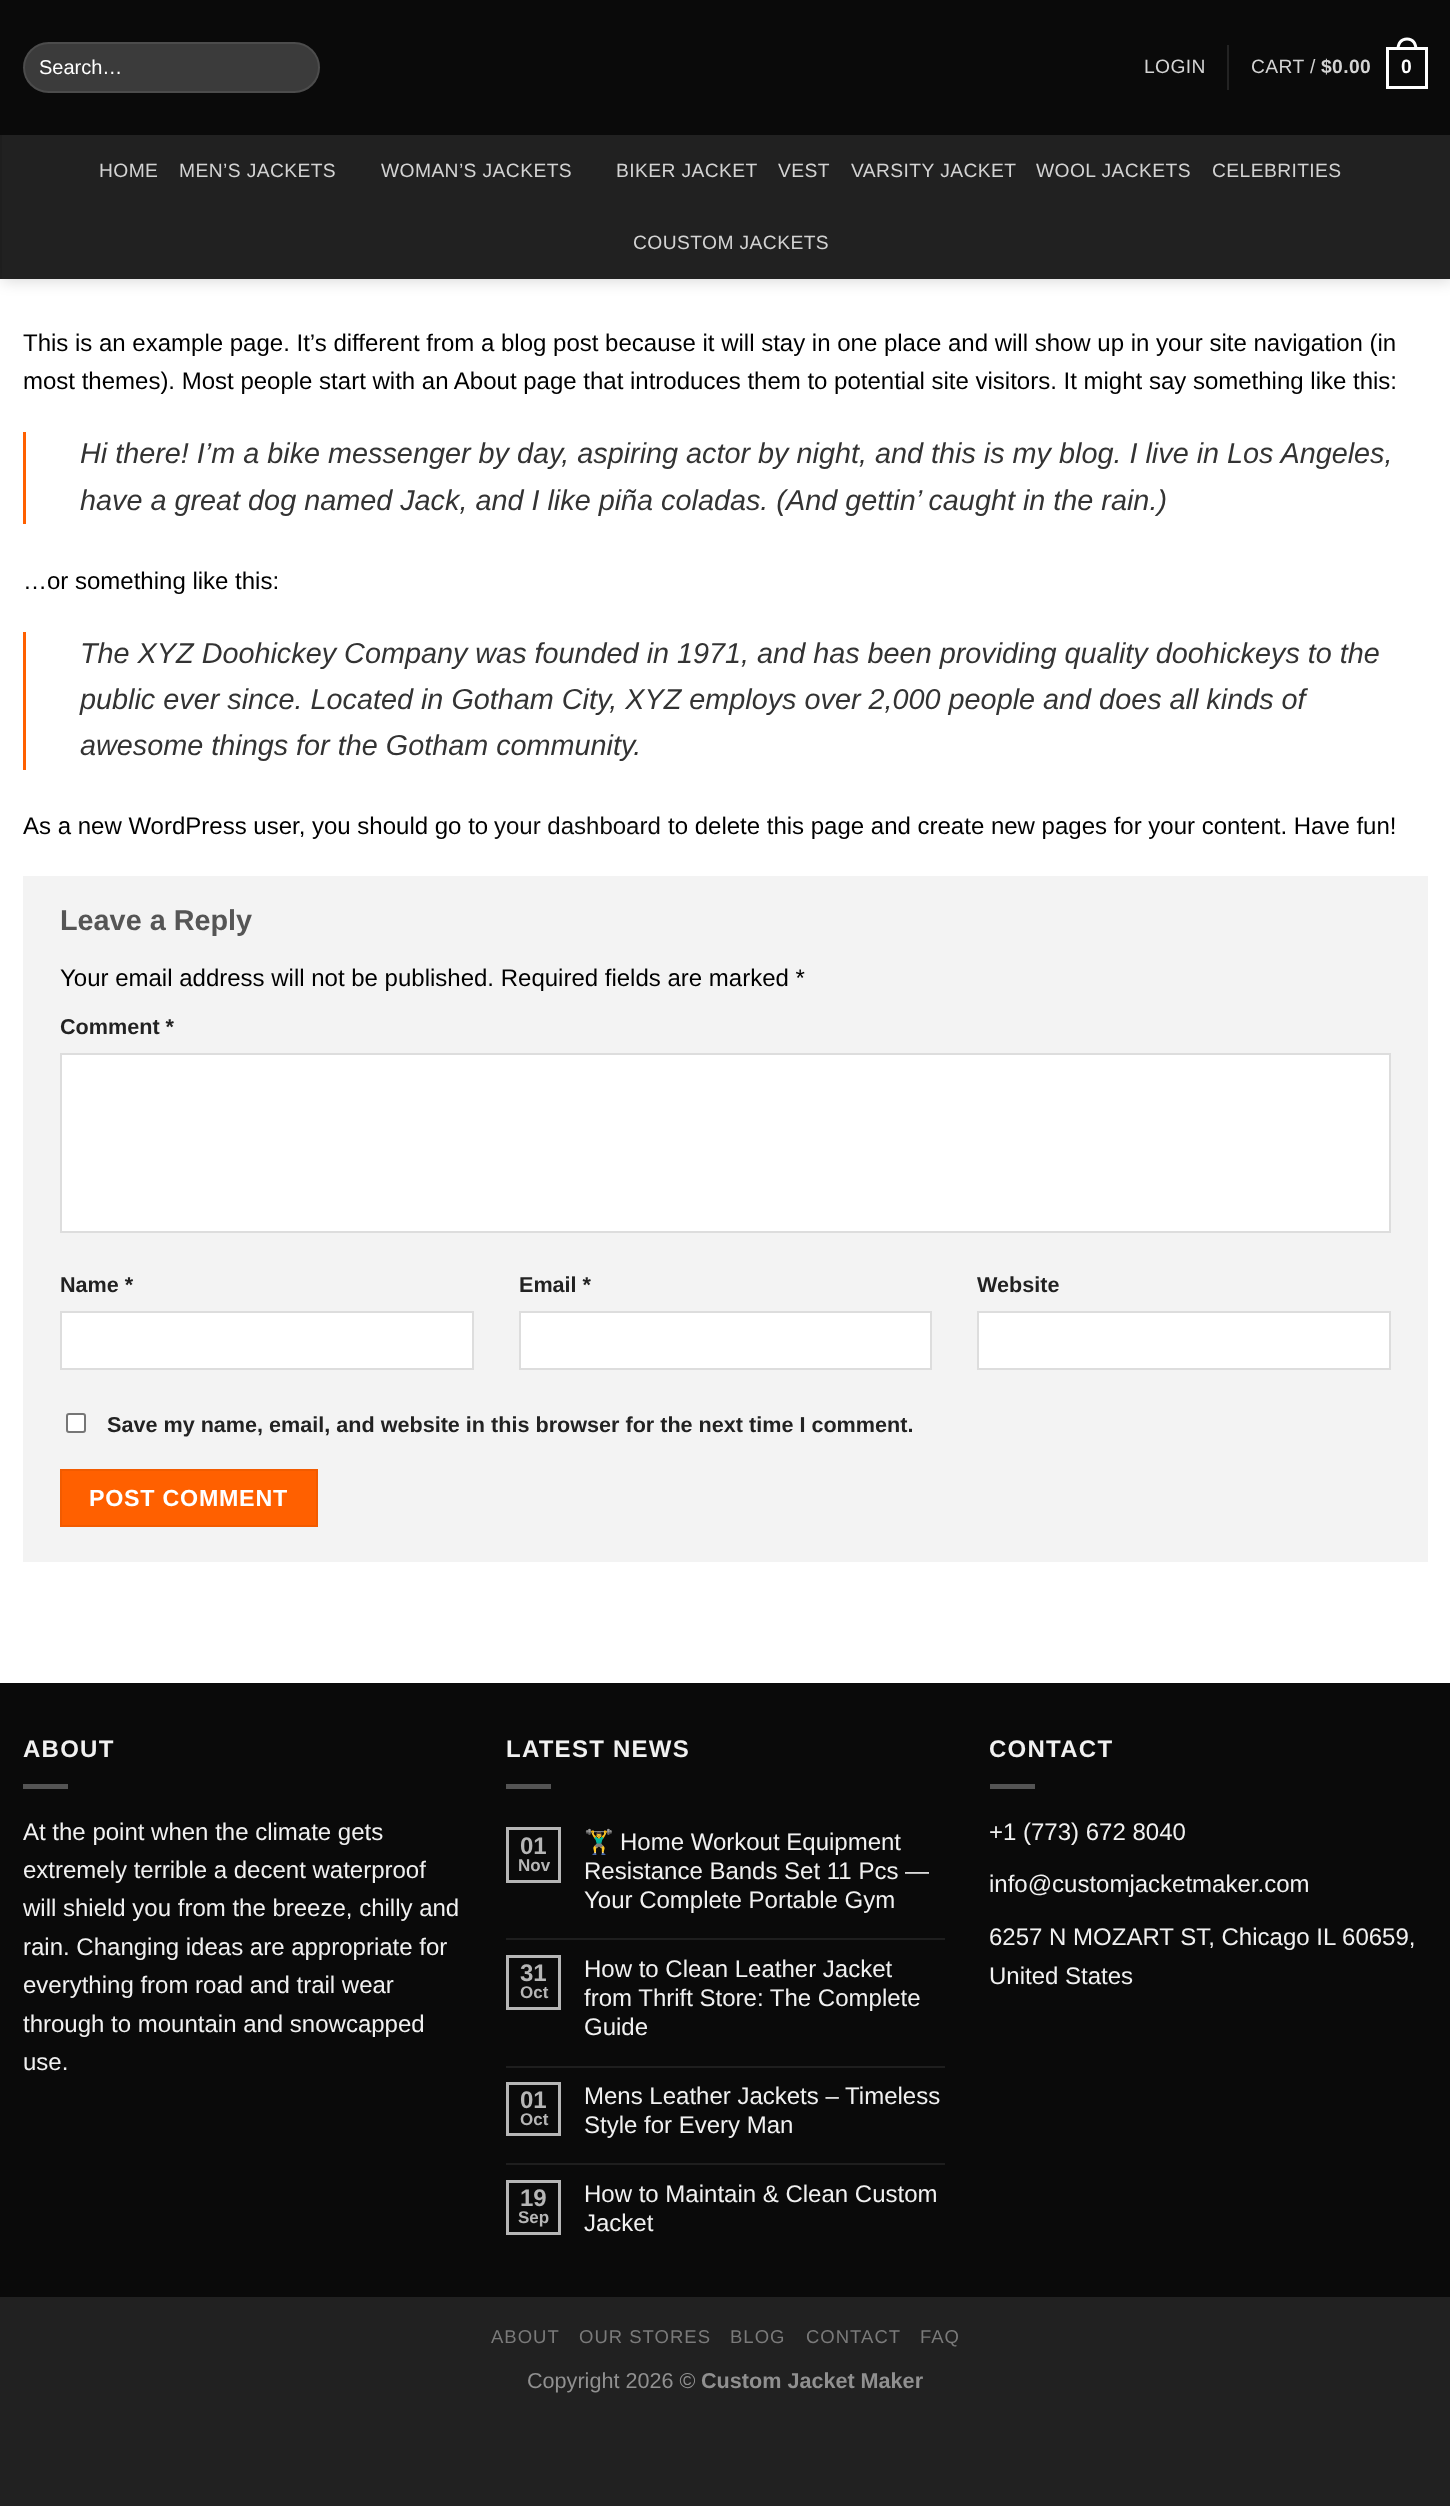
async function draw(canvas) {
  canvas.width = 1450
  canvas.height = 2506
  const ctx = canvas.getContext('2d')
  ctx.miterLimit = 4
  ctx.fontKerning = 'normal'

  ctx.fillStyle = '#212121'
  ctx.fillRect(0, 0, 1450, 2506)
  ctx.fillStyle = '#fff'
  ctx.fillRect(0, 279, 1450, 1404)
  ctx.fillStyle = '#00000026'
  ctx.filter = 'blur(7.5px)'
  ctx.beginPath()
  ctx.rect(2, 2, 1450, 279)
  ctx.fill()
  ctx.filter = 'none'
  ctx.fillStyle = '#0a0a0a'
  ctx.fillRect(0, 0, 1450, 135)
  ctx.fillStyle = '#3b3b3b'
  ctx.beginPath()
  ctx.roundRect(23, 42, 297, 51, 25.5)
  ctx.fill()
  ctx.beginPath()
  ctx.roundRect(24, 43, 295, 49, 24.5)
  ctx.strokeStyle = '#ffffff17'
  ctx.lineWidth = 2
  ctx.stroke()
  ctx.font = '20px Liberation Sans'
  ctx.fillStyle = '#fff'
  ctx.fillText('Search…', 39, 74)
  ctx.letterSpacing = '0.4px'
  ctx.font = '19.25px Liberation Sans'
  ctx.fillStyle = '#d3d3d3'
  ctx.fillText('LOGIN', 1144, 73)
  ctx.fillStyle = '#232323'
  ctx.fillRect(1227, 45, 2, 45)
  ctx.fillStyle = '#d3d3d3'
  ctx.fillText('CART /', 1251, 73)
  ctx.font = 'bold 19.25px Liberation Sans'
  ctx.fillText('$0.00', 1321, 73)
  ctx.strokeStyle = '#fff'
  ctx.lineWidth = 3
  ctx.strokeRect(1387.5, 48.5, 39, 39)
  ctx.fillStyle = '#fff'
  ctx.beginPath()
  ctx.moveTo(1407, 37.5)
  ctx.bezierCurveTo(1414, 37.5, 1417.5, 43, 1417.5, 49.5)
  ctx.lineTo(1396.5, 49.5)
  ctx.bezierCurveTo(1396.5, 43, 1400, 37.5, 1407, 37.5)
  ctx.closePath()
  ctx.moveTo(1407, 40.5)
  ctx.bezierCurveTo(1412.5, 40.5, 1414.5, 45, 1414.5, 49.5)
  ctx.lineTo(1399.5, 49.5)
  ctx.bezierCurveTo(1399.5, 45, 1401.5, 40.5, 1407, 40.5)
  ctx.closePath()
  ctx.fill('evenodd')
  ctx.fillText('0', 1401, 73)
  ctx.fillStyle = '#212121'
  ctx.fillRect(2, 135, 1448, 144)
  ctx.font = '19.25px Liberation Sans'
  ctx.fillStyle = '#d3d3d3'
  ctx.fillText('HOME', 99, 177)
  ctx.fillText('MEN’S JACKETS', 179, 177)
  ctx.fillText('WOMAN’S JACKETS', 381, 177)
  ctx.fillText('BIKER JACKET', 616, 177)
  ctx.fillText('VEST', 778, 177)
  ctx.fillText('VARSITY JACKET', 851, 177)
  ctx.fillText('WOOL JACKETS', 1036, 177)
  ctx.fillText('CELEBRITIES', 1212, 177)
  ctx.fillText('COUSTOM JACKETS', 633, 249)
  ctx.letterSpacing = '0px'
  ctx.font = '24px Liberation Sans'
  ctx.fillStyle = '#000'
  ctx.fillText('This is an example page. It’s different from a blog post because it will stay in one place and will show up in your site navigation (in', 23, 351)
  ctx.fillText('most themes). Most people start with an About page that introduces them to potential site visitors. It might say something like this:', 23, 389)
  ctx.fillStyle = '#ff6000'
  ctx.fillRect(23, 432, 3, 92)
  ctx.font = 'italic 28.8px Liberation Sans'
  ctx.fillStyle = '#333'
  ctx.fillText('Hi there! I’m a bike messenger by day, aspiring actor by night, and this is my blog. I live in Los Angeles,', 80, 463)
  ctx.fillText('have a great dog named Jack, and I like piña coladas. (And gettin’ caught in the rain.)', 80, 510)
  ctx.font = '24px Liberation Sans'
  ctx.fillStyle = '#000'
  ctx.fillText('…or something like this:', 23, 589)
  ctx.fillStyle = '#ff6000'
  ctx.fillRect(23, 632, 3, 138)
  ctx.font = 'italic 28.8px Liberation Sans'
  ctx.fillStyle = '#333'
  ctx.fillText('The XYZ Doohickey Company was founded in 1971, and has been providing quality doohickeys to the', 80, 663)
  ctx.fillText('public ever since. Located in Gotham City, XYZ employs over 2,000 people and does all kinds of', 80, 709)
  ctx.fillText('awesome things for the Gotham community.', 80, 755)
  ctx.font = '24px Liberation Sans'
  ctx.fillStyle = '#000'
  ctx.fillText('As a new WordPress user, you should go to', 23, 834)
  ctx.fillStyle = '#0a0a0a'
  ctx.fillText('your dashboard', 494, 834)
  ctx.fillStyle = '#000'
  ctx.fillText('to delete this page and create new pages for your content. Have fun!', 668, 834)
  ctx.fillStyle = '#f3f3f3'
  ctx.fillRect(23, 876, 1405, 686)
  ctx.font = 'bold 28.8px Liberation Sans'
  ctx.fillStyle = '#555'
  ctx.fillText('Leave a Reply', 60, 930)
  ctx.font = '24px Liberation Sans'
  ctx.fillStyle = '#000'
  ctx.fillText('Your email address will not be published. Required fields are marked *', 60, 986)
  ctx.font = 'bold 21.6px Liberation Sans'
  ctx.fillStyle = '#222'
  ctx.fillText('Comment *', 60, 1034)
  ctx.fillStyle = '#fff'
  ctx.beginPath()
  ctx.rect(61, 1054, 1329, 178)
  ctx.fill()
  ctx.strokeStyle = '#ddd'
  ctx.lineWidth = 2
  ctx.stroke()
  ctx.fillStyle = '#222'
  ctx.fillText('Name *', 60, 1292)
  ctx.fillStyle = '#fff'
  ctx.beginPath()
  ctx.rect(61, 1312, 412, 57)
  ctx.fill()
  ctx.stroke()
  ctx.fillStyle = '#222'
  ctx.fillText('Email *', 519, 1292)
  ctx.fillStyle = '#fff'
  ctx.beginPath()
  ctx.rect(520, 1312, 411, 57)
  ctx.fill()
  ctx.stroke()
  ctx.fillStyle = '#222'
  ctx.fillText('Website', 977, 1292)
  ctx.fillStyle = '#fff'
  ctx.beginPath()
  ctx.rect(978, 1312, 412, 57)
  ctx.fill()
  ctx.stroke()
  ctx.beginPath()
  ctx.roundRect(67, 1414, 18, 18, 2)
  ctx.fill()
  ctx.strokeStyle = '#767676'
  ctx.stroke()
  ctx.fillStyle = '#222'
  ctx.fillText('Save my name, email, and website in this browser for the next time I comment.', 107, 1432)
  ctx.fillStyle = '#ff6000'
  ctx.beginPath()
  ctx.rect(61, 1470, 256, 56)
  ctx.fill()
  ctx.strokeStyle = '#f25b00'
  ctx.stroke()
  ctx.letterSpacing = '0.75px'
  ctx.font = 'bold 23.25px Liberation Sans'
  ctx.fillStyle = '#fff'
  ctx.fillText('POST COMMENT', 89, 1506)
  ctx.fillStyle = '#0a0a0a'
  ctx.fillRect(0, 1683, 1450, 614)
  ctx.letterSpacing = '1.25px'
  ctx.font = 'bold 24px Liberation Sans'
  ctx.fillStyle = '#f1f1f1'
  ctx.fillText('ABOUT', 23, 1757)
  ctx.fillStyle = '#545454'
  ctx.fillRect(23, 1784, 45, 5)
  ctx.letterSpacing = '0px'
  ctx.font = '24px Liberation Sans'
  ctx.fillStyle = '#f1f1f1'
  ctx.fillText('At the point when the climate gets', 23, 1840)
  ctx.fillText('extremely terrible a decent waterproof', 23, 1878)
  ctx.fillText('will shield you from the breeze, chilly and', 23, 1916)
  ctx.fillText('rain. Changing ideas are appropriate for', 23, 1955)
  ctx.fillText('everything from road and trail wear', 23, 1993)
  ctx.fillText('through to mountain and snowcapped', 23, 2032)
  ctx.fillText('use.', 23, 2070)
  ctx.letterSpacing = '1.25px'
  ctx.font = 'bold 24px Liberation Sans'
  ctx.fillText('LATEST NEWS', 506, 1757)
  ctx.fillStyle = '#545454'
  ctx.fillRect(506, 1784, 45, 5)
  ctx.strokeStyle = '#b6b6b6'
  ctx.lineWidth = 3
  ctx.strokeRect(507.5, 1828.5, 52, 53)
  ctx.letterSpacing = '0px'
  ctx.fillStyle = '#b6b6b6'
  ctx.fillText('01', 520, 1854)
  ctx.font = 'bold 17px Liberation Sans'
  ctx.fillText('Nov', 518, 1871)
  ctx.font = '24px Noto Color Emoji'
  ctx.fillStyle = '#f1f1f1'
  ctx.fillText('🏋️‍♂️', 584, 1850)
  ctx.font = '24px Liberation Sans'
  ctx.fillText('Home Workout Equipment', 620, 1850)
  ctx.fillText('Resistance Bands Set 11 Pcs —', 584, 1879)
  ctx.fillText('Your Complete Portable Gym', 584, 1908)
  ctx.fillStyle = '#1e1e1e'
  ctx.fillRect(506, 1938, 439, 2)
  ctx.strokeRect(507.5, 1956.5, 52, 52)
  ctx.font = 'bold 24px Liberation Sans'
  ctx.fillStyle = '#b6b6b6'
  ctx.fillText('31', 520, 1981)
  ctx.font = 'bold 17px Liberation Sans'
  ctx.fillText('Oct', 520, 1998)
  ctx.font = '24px Liberation Sans'
  ctx.fillStyle = '#f1f1f1'
  ctx.fillText('How to Clean Leather Jacket', 584, 1977)
  ctx.fillText('from Thrift Store: The Complete', 584, 2006)
  ctx.fillText('Guide', 584, 2035)
  ctx.fillStyle = '#1e1e1e'
  ctx.fillRect(506, 2066, 439, 2)
  ctx.strokeRect(507.5, 2083.5, 52, 51)
  ctx.font = 'bold 24px Liberation Sans'
  ctx.fillStyle = '#b6b6b6'
  ctx.fillText('01', 520, 2108)
  ctx.font = 'bold 17px Liberation Sans'
  ctx.fillText('Oct', 520, 2125)
  ctx.font = '24px Liberation Sans'
  ctx.fillStyle = '#f1f1f1'
  ctx.fillText('Mens Leather Jackets – Timeless', 584, 2104)
  ctx.fillText('Style for Every Man', 584, 2133)
  ctx.fillStyle = '#1e1e1e'
  ctx.fillRect(506, 2163, 439, 2)
  ctx.strokeRect(507.5, 2181.5, 52, 52)
  ctx.font = 'bold 24px Liberation Sans'
  ctx.fillStyle = '#b6b6b6'
  ctx.fillText('19', 520, 2206)
  ctx.font = 'bold 17px Liberation Sans'
  ctx.fillText('Sep', 518, 2223)
  ctx.font = '24px Liberation Sans'
  ctx.fillStyle = '#f1f1f1'
  ctx.fillText('How to Maintain & Clean Custom', 584, 2202)
  ctx.fillText('Jacket', 584, 2231)
  ctx.letterSpacing = '1.25px'
  ctx.font = 'bold 24px Liberation Sans'
  ctx.fillText('CONTACT', 989, 1757)
  ctx.fillStyle = '#545454'
  ctx.fillRect(990, 1784, 45, 5)
  ctx.letterSpacing = '0px'
  ctx.font = '24px Liberation Sans'
  ctx.fillStyle = '#f1f1f1'
  ctx.fillText('+1 (773) 672 8040', 989, 1840)
  ctx.fillText('info@customjacketmaker.com', 989, 1892)
  ctx.fillText('6257 N MOZART ST, Chicago IL 60659,', 989, 1945)
  ctx.fillText('United States', 989, 1984)
  ctx.letterSpacing = '1px'
  ctx.font = '18.5px Liberation Sans'
  ctx.fillStyle = '#7a7a7a'
  ctx.fillText('ABOUT', 491, 2343)
  ctx.fillText('OUR STORES', 579, 2343)
  ctx.fillText('BLOG', 730, 2343)
  ctx.fillText('CONTACT', 806, 2343)
  ctx.fillText('FAQ', 920, 2343)
  ctx.letterSpacing = '0px'
  ctx.font = '21.6px Liberation Sans'
  ctx.fillStyle = '#909090'
  ctx.fillText('Copyright 2026 ©', 527, 2388)
  ctx.font = 'bold 21.6px Liberation Sans'
  ctx.fillText('Custom Jacket Maker', 701, 2388)
}

draw(document.querySelector('canvas'))
